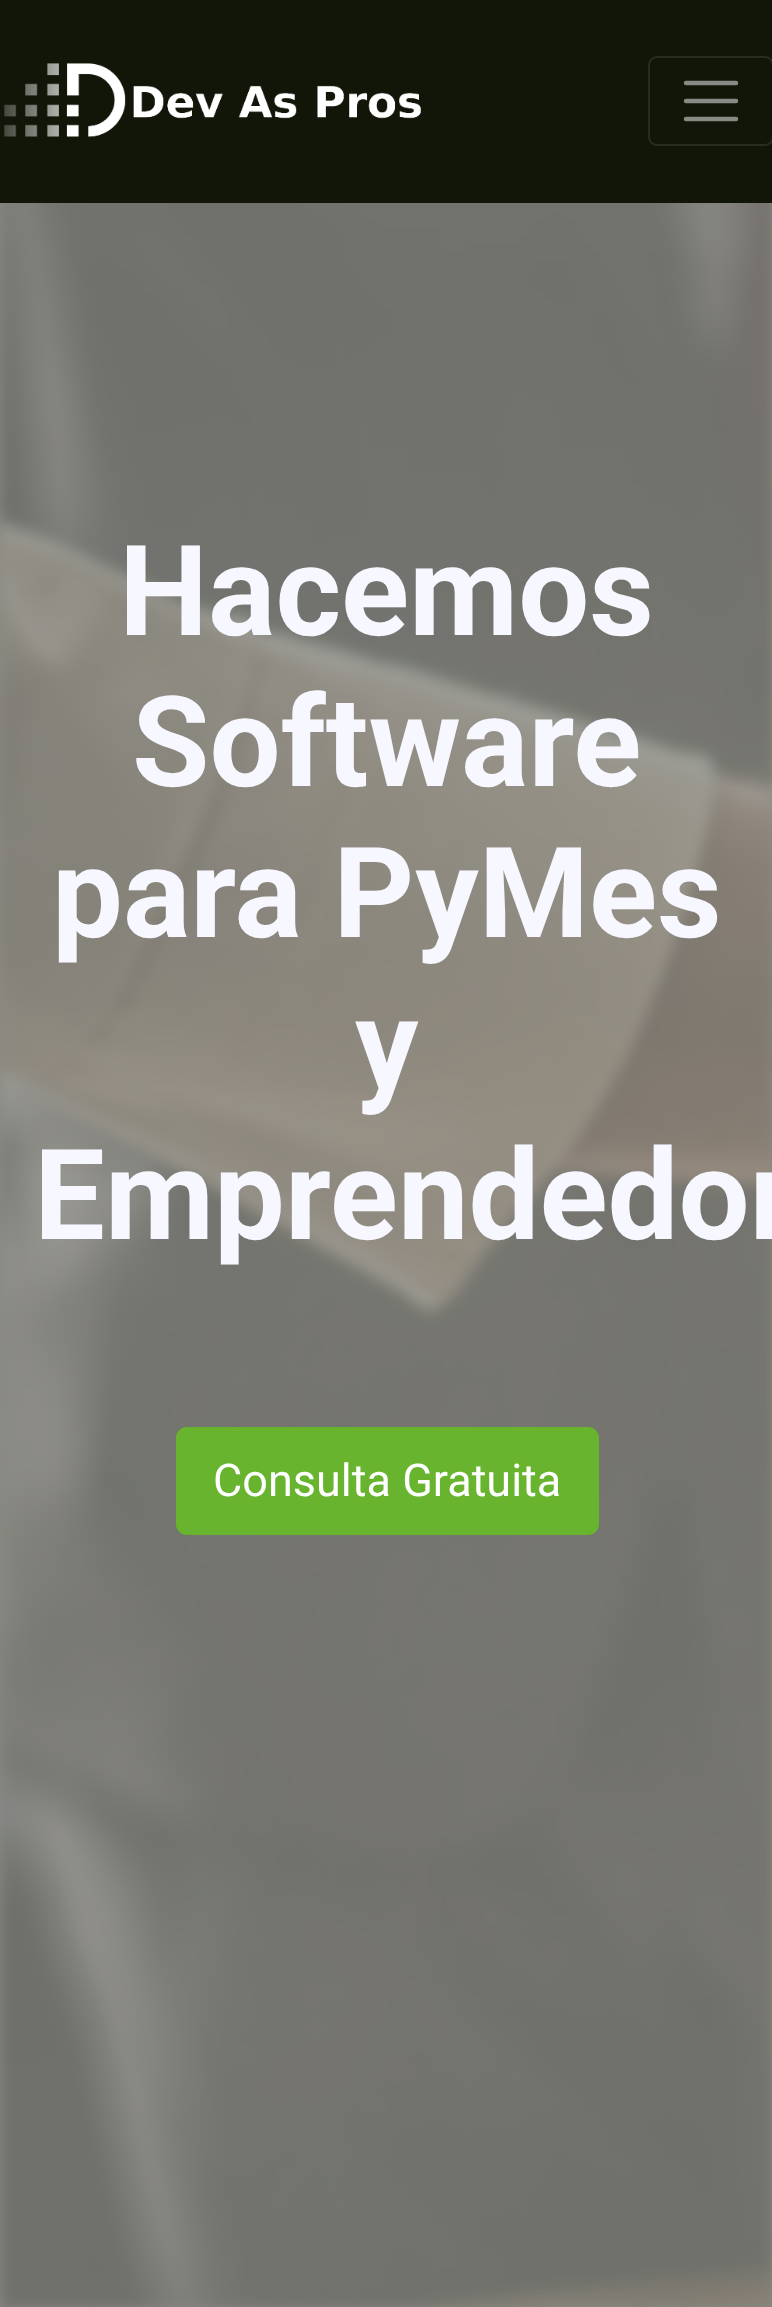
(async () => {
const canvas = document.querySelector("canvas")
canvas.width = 772
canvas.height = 2307
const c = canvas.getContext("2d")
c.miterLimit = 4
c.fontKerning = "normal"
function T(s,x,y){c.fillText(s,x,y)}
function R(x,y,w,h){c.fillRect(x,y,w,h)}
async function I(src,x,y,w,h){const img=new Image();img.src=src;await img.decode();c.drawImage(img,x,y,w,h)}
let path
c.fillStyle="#898a84"
R(0,0,772,2307)
c.fillStyle="#111608"
R(0,0,772,203)
await I("1.png",4,63,417,74)
c.beginPath()
c.roundRect(649,57,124,88,8)
c.strokeStyle="#292d21"
c.lineWidth=2
c.stroke()
path = new Path2D("M686 83h50m-50 18h50m-50 18h50")
c.strokeStyle="#888b84"
c.lineWidth=4.5
c.lineCap="round"
c.stroke(path)
await I("2.png",0,203,772,2104)
c.font="bold 126px Roboto"
c.fillStyle="#f7f7ff"
T("Hacemos",119,635)
T("Software",132,786)
T("para PyMes",52,937)
T("y",355,1088)
T("Emprendedor",34,1239)
c.fillStyle="#68b42e"
c.beginPath()
c.roundRect(177,1428,421,106,10)
c.fill()
c.strokeStyle="#68b42e"
c.lineWidth=2
c.stroke()
c.font="45px Roboto"
c.fillStyle="#fff"
T("Consulta Gratuita",213,1496)
})()
